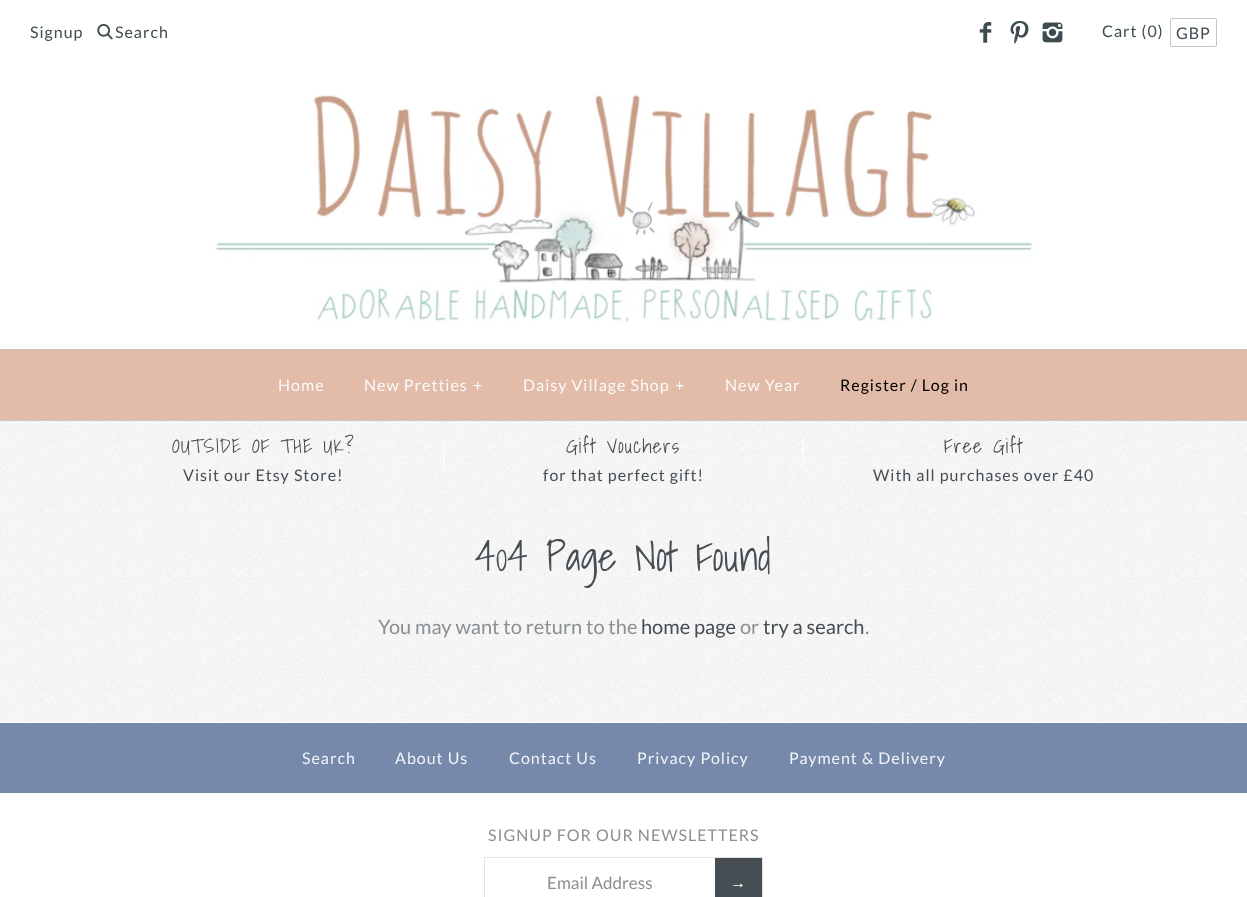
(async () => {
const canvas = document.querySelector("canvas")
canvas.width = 1247
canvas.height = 897
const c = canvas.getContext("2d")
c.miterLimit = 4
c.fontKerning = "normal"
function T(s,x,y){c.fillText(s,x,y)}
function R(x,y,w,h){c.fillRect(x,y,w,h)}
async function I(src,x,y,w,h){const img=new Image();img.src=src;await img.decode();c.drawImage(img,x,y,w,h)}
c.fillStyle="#fff"
R(0,0,1247,897)
c.letterSpacing="1px"
c.font="16px Lato"
c.fillStyle="#3d4c4f"
T("Signup",30,38)
await I("1.png",97,23,16,17)
T("Search",115,38)
await I("2.png",979,22,13,21)
await I("3.png",1010,20,19,24)
await I("4.png",1042,22,21,21)
T("Cart (0)",1102,37)
c.beginPath()
c.roundRect(1170.5,18.5,46,28,1.5)
c.strokeStyle="#c6c6c6"
c.stroke()
T("GBP",1176,39)
await I("5.png",214,94,820,232)
c.fillStyle="#c6c6c6"
R(0,420,1247,1)
c.fillStyle="#e2bca8"
R(0,350,1247,70)
c.fillStyle="#c6c6c6"
R(0,349,1247,1)
c.fillStyle="#fcf9f9"
T("Home",278,391)
T("New Pretties",364,391)
T("+",473,391)
T("Daisy Village Shop",523,391)
T("+",675,391)
T("New Year",725,391)
c.fillStyle="#000"
T("Register / Log in",840,391)
await I("6.png",0,421,1247,301)
c.font="300 20px Shadows Into Light"
c.fillStyle="#464e54"
T("OUTSIDE OF THE UK?",172,453)
c.font="16px Lato"
T("Visit our Etsy Store!",183,481)
c.fillStyle="#fff"
R(443,441,1,28)
c.font="300 20px Shadows Into Light"
c.fillStyle="#464e54"
T("Gift Vouchers",566,453)
c.font="16px Lato"
T("for that perfect gift!",543,481)
c.fillStyle="#fff"
R(803,441,1,28)
c.font="300 20px Shadows Into Light"
c.fillStyle="#464e54"
T("Free Gift",944,453)
c.font="16px Lato"
T("With all purchases over £40",873,481)
c.letterSpacing="0px"
c.font="300 40px Shadows Into Light"
T("404 Page Not Found",475,571)
c.font="20px Lato"
c.fillStyle="#8a8f93"
T("You may want to return to the",378,634)
c.fillStyle="#464e54"
T("home page",641,634)
c.fillStyle="#8a8f93"
T("or",740,634)
c.fillStyle="#464e54"
T("try a search",763,634)
c.fillStyle="#8a8f93"
T(".",865,634)
c.fillStyle="#7689aa"
R(0,723,1247,70)
c.letterSpacing="1px"
c.font="16px Lato"
c.fillStyle="#f0f4f7"
T("Search",302,764)
T("About Us",395,764)
T("Contact Us",509,764)
T("Privacy Policy",637,764)
T("Payment & Delivery",789,764)
c.fillStyle="#8a8f93"
T("SIGNUP FOR OUR NEWSLETTERS",488,841)
c.strokeStyle="#e1e3e4"
c.strokeRect(484.5,857.5,278,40)
c.letterSpacing="0px"
c.font="17px Lato"
T("Email Address",547,889)
c.fillStyle="#464e54"
R(715,858,47,39)
c.letterSpacing="1px"
c.font="16px Liberation Serif"
c.fillStyle="#fff"
T("→",730,888)
})()
